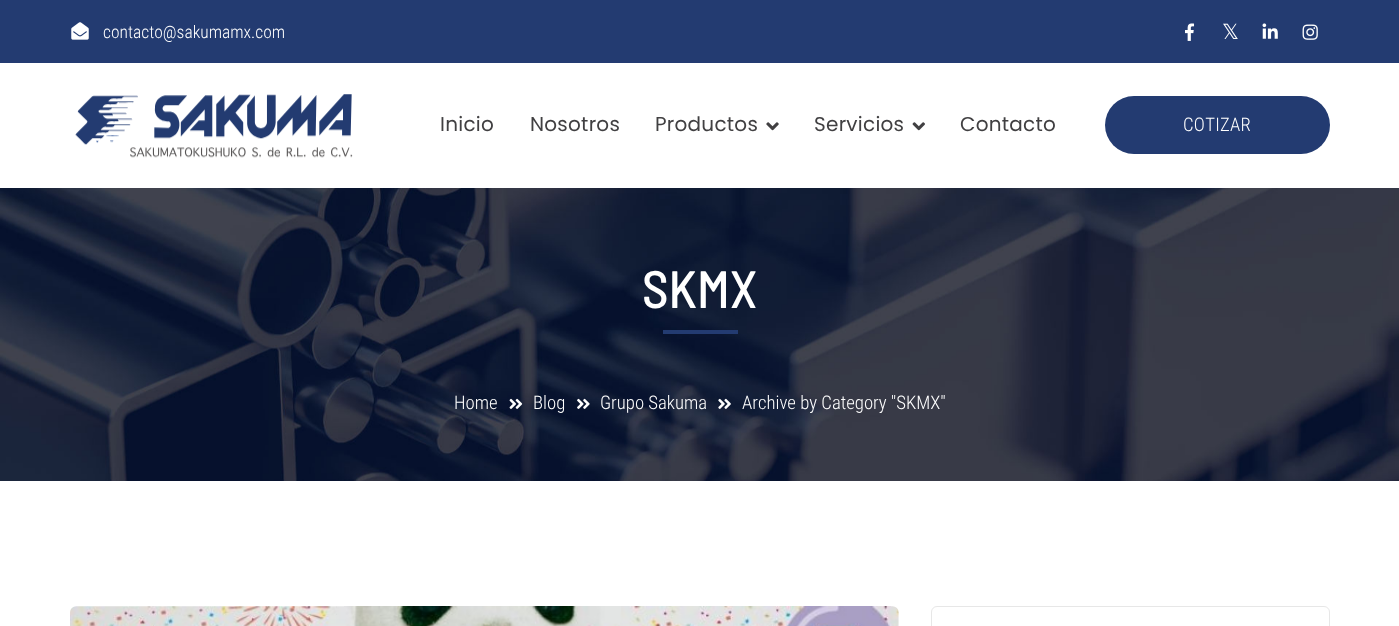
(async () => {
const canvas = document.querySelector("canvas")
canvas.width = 1399
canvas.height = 626
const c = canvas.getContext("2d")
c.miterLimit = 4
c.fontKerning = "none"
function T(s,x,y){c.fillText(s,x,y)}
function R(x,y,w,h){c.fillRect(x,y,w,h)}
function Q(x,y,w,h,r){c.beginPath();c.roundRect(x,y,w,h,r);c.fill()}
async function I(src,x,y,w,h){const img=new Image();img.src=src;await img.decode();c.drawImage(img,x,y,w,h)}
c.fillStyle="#fff"
R(0,0,1399,626)
c.fillStyle="#233b71"
R(0,0,1399,63)
await I("1.png",71,22,18,18)
c.font="300 17.5px Roboto Condensed"
c.fillStyle="#fff"
T("contacto@sakumamx.com",103,38)
await I("2.png",1185,23,10,18)
c.font="21px DejaVu Sans"
T("𝕏",1222,39)
await I("3.png",1262,23,16,16)
await I("4.png",1302,24,16,16)
await I("5.png",75,94,278,64)
c.letterSpacing="0.25px"
c.font="20px Poppins"
c.fillStyle="#414042"
T("Inicio",440,131)
T("Nosotros",530,131)
T("Productos",655,131)
await I("6.png",766,122,13,9)
T("Servicios",814,131)
await I("7.png",912,122,13,9)
T("Contacto",960,131)
c.fillStyle="#233b71"
Q(1105,96,225,58,29)
c.font="300 18.75px Roboto Condensed"
c.fillStyle="#fff"
T("COTIZAR",1183,131)
await I("8.png",0,188,1399,293)
c.letterSpacing="0px"
c.font="500 52.5px Barlow Semi Condensed"
T("SKMX",642,308)
c.fillStyle="#233b71"
R(663,330,75,4)
c.font="300 18.75px Roboto Condensed"
c.fillStyle="#fff"
T("Home",454,409)
await I("9.png",509,398,14,11)
T("Blog",533,409)
await I("10.png",577,398,13,11)
T("Grupo Sakuma",600,409)
await I("11.png",718,398,13,11)
T("Archive by Category \"SKMX\"",742,409)
await I("12.png",70,606,829,20)
c.beginPath()
c.roundRect(931.5,606.5,398,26,5.5)
c.strokeStyle="#e7e7e7"
c.stroke()
})()
